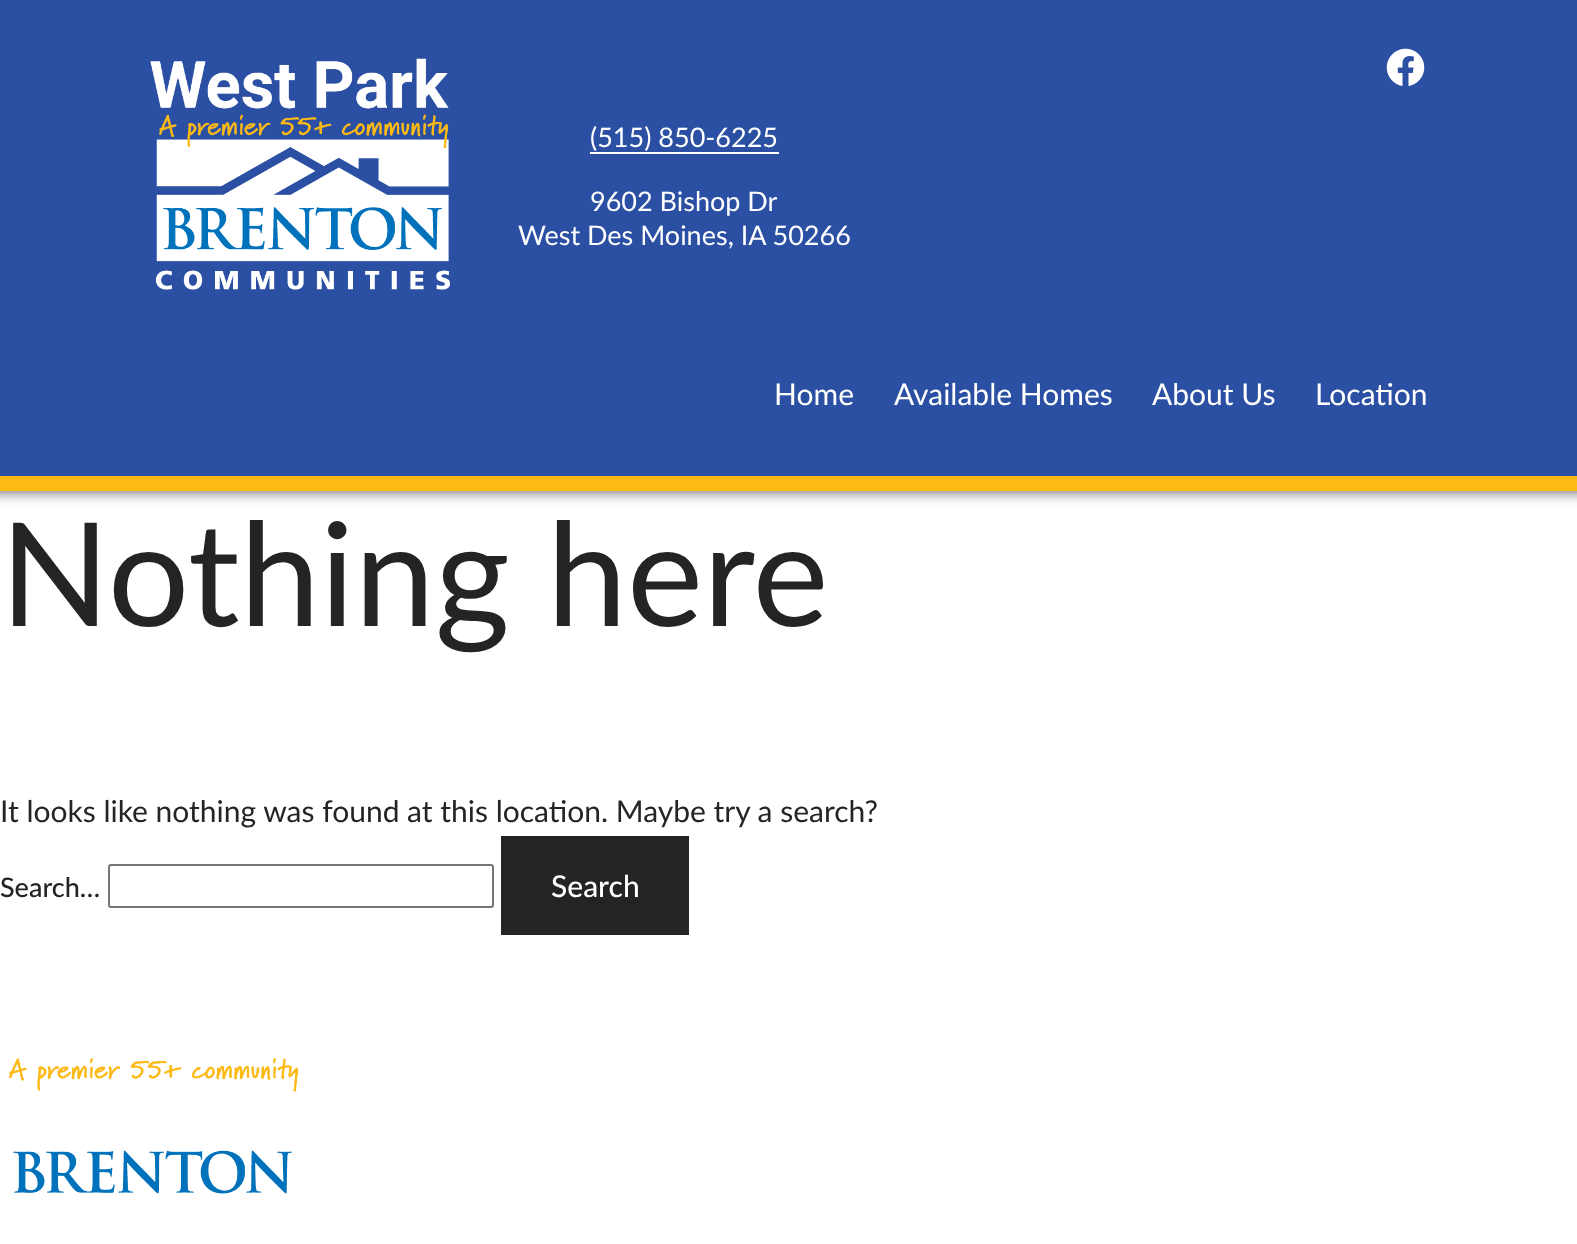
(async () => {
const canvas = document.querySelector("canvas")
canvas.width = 1577
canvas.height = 1244
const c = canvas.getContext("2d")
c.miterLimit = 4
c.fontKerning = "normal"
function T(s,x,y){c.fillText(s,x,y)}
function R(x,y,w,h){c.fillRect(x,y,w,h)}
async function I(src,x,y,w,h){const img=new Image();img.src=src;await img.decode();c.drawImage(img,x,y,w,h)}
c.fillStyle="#fff"
R(0,0,1577,1244)
c.fillStyle="#000000ad"
c.filter="blur(7.5px)"
c.beginPath()
c.rect(-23,-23,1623,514)
c.fill()
c.filter="none"
c.fillStyle="#2b50a3"
R(0,0,1577,476)
c.fillStyle="#fdba12"
R(0,476,1577,15)
await I("1.png",150,58,300,232)
c.font="27px Lato"
c.fillStyle="#fff"
T("(515) 850-6225",590,147)
R(590,152,189,2)
T("9602 Bishop Dr",590,211)
T("West Des Moines, IA 50266",518,245)
await I("2.png",1386,48,39,38)
c.font="30px Lato"
T("Home",774,405)
T("Available Homes",894,405)
T("About Us",1152,405)
T("Location",1315,405)
c.font="144px Lato"
c.fillStyle="#242424"
T("Nothing here",0,626)
c.font="30px Lato"
T("It looks like nothing was found at this location. Maybe try a search?",0,822)
c.font="500 27px Lato"
T("Search…",0,897)
c.beginPath()
c.roundRect(109,865,384,42,2)
c.strokeStyle="#767676"
c.lineWidth=2
c.stroke()
R(501,836,188,99)
c.font="500 30px Lato"
c.fillStyle="#fff"
T("Search",551,897)
await I("3.png",9,1058,290,136)
})()
